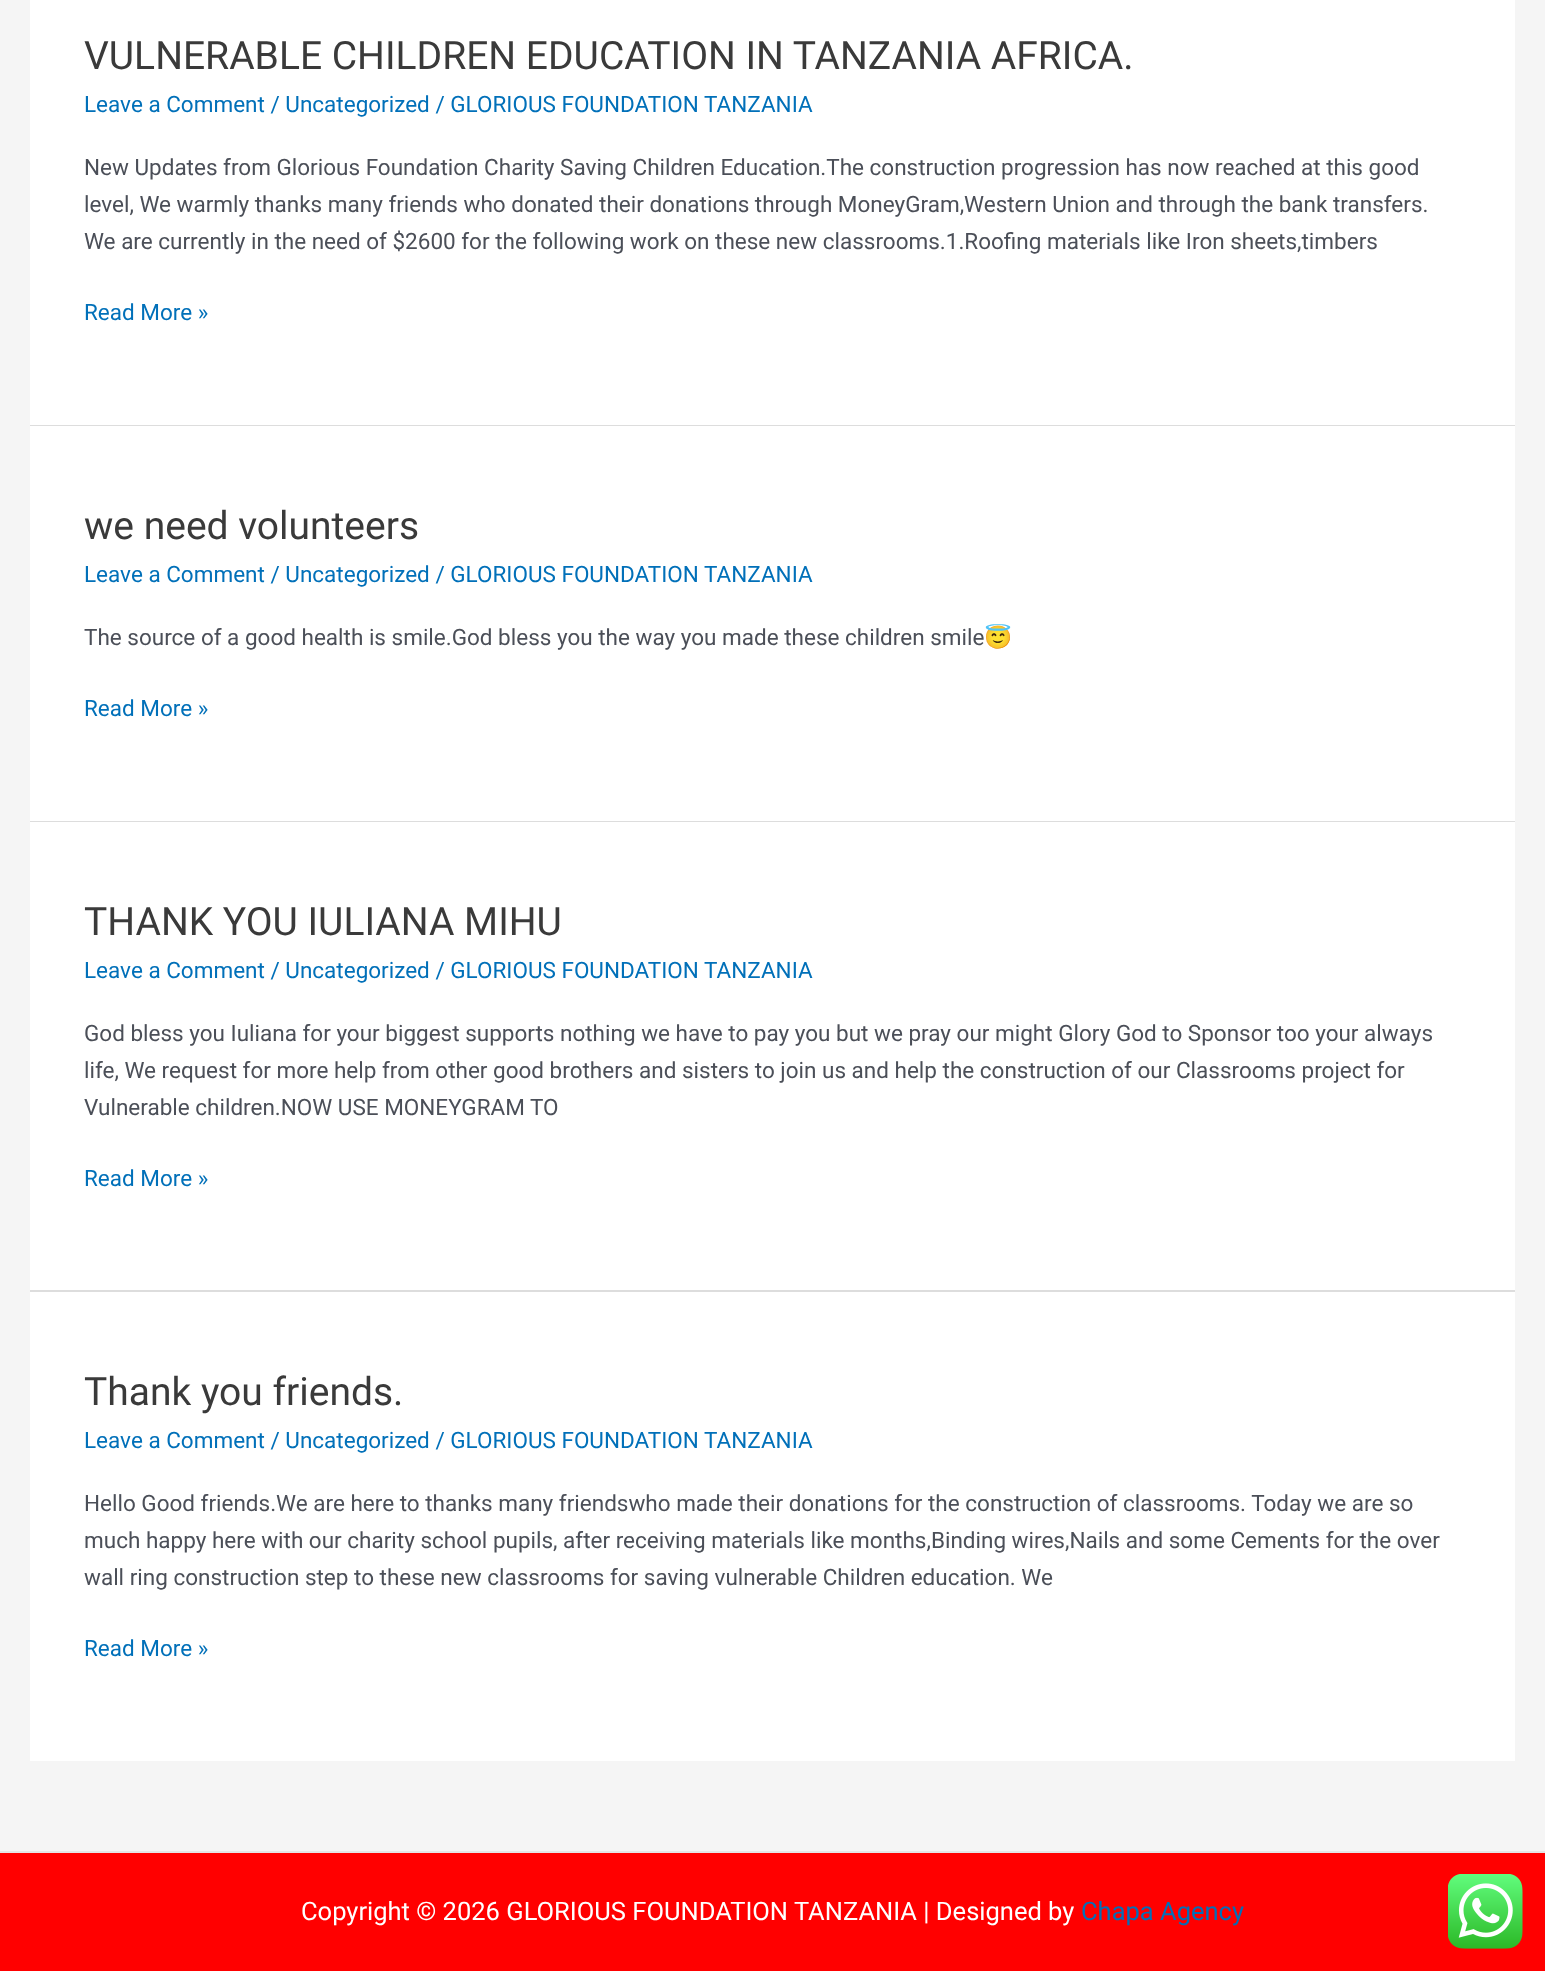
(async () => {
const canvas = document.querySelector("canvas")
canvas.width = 1545
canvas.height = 1971
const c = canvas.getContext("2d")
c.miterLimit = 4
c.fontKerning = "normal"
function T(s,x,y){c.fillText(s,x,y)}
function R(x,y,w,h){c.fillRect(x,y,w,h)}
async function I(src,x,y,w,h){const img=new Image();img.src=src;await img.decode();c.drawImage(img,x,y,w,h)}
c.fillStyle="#f5f5f5"
R(0,0,1545,1971)
c.fillStyle="#fff"
R(30,0,1485,425)
c.fillStyle="#ddd"
R(30,425,1485,1)
c.font="39px Roboto"
c.fillStyle="#3a3a3a"
T("VULNERABLE CHILDREN EDUCATION IN TANZANIA AFRICA.",84,69)
c.font="22.5px Roboto"
c.fillStyle="#0170b9"
T("Leave a Comment / Uncategorized / GLORIOUS FOUNDATION TANZANIA",84,112)
c.fillStyle="#4b4f58"
T("New Updates from Glorious Foundation Charity Saving Children Education.The construction progression has now reached at this good",84,175)
T("level, We warmly thanks many friends who donated their donations through MoneyGram,Western Union and through the bank transfers.",84,212)
T("We are currently in the need of $2600 for the following work on these new classrooms.1.Roofing materials like Iron sheets,timbers",84,249)
c.fillStyle="#0170b9"
T("Read More »",84,320)
c.fillStyle="#fff"
R(30,426,1485,395)
c.fillStyle="#ddd"
R(30,821,1485,1)
c.font="39px Roboto"
c.fillStyle="#3a3a3a"
T("we need volunteers",84,539)
c.font="22.5px Roboto"
c.fillStyle="#0170b9"
T("Leave a Comment / Uncategorized / GLORIOUS FOUNDATION TANZANIA",84,582)
c.fillStyle="#4b4f58"
T("The source of a good health is smile.God bless you the way you made these children smile",84,645)
c.font="22.5px Noto Color Emoji"
T("😇",984,645)
c.font="22.5px Roboto"
c.fillStyle="#0170b9"
T("Read More »",84,716)
c.fillStyle="#fff"
R(30,822,1485,468)
c.fillStyle="#ddd"
R(30,1290,1485,2)
c.font="39px Roboto"
c.fillStyle="#3a3a3a"
T("THANK YOU IULIANA MIHU",84,935)
c.font="22.5px Roboto"
c.fillStyle="#0170b9"
T("Leave a Comment / Uncategorized / GLORIOUS FOUNDATION TANZANIA",84,978)
c.fillStyle="#4b4f58"
T("God bless you Iuliana for your biggest supports nothing we have to pay you but we pray our might Glory God to Sponsor too your always",84,1041)
T("life, We request for more help from other good brothers and sisters to join us and help the construction of our Classrooms project for",84,1078)
T("Vulnerable children.NOW USE MONEYGRAM TO",84,1115)
c.fillStyle="#0170b9"
T("Read More »",84,1186)
c.fillStyle="#fff"
R(30,1292,1485,469)
c.font="39px Roboto"
c.fillStyle="#3a3a3a"
T("Thank you friends.",84,1405)
c.font="22.5px Roboto"
c.fillStyle="#0170b9"
T("Leave a Comment / Uncategorized / GLORIOUS FOUNDATION TANZANIA",84,1448)
c.fillStyle="#4b4f58"
T("Hello Good friends.We are here to thanks many friendswho made their donations for the construction of classrooms. Today we are so",84,1511)
T("much happy here with our charity school pupils, after receiving materials like months,Binding wires,Nails and some Cements for the over",84,1548)
T("wall ring construction step to these new classrooms for saving vulnerable Children education. We",84,1585)
c.fillStyle="#0170b9"
T("Read More »",84,1656)
c.fillStyle="#f00"
R(0,1853,1545,118)
c.fillStyle="#e5e5e5"
R(0,1851,1545,2)
c.font="25.5px Roboto"
c.fillStyle="#fff"
T("Copyright © 2026 GLORIOUS FOUNDATION TANZANIA | Designed by",301,1920)
c.fillStyle="#0170b9"
T("Chapa Agency",1081,1920)
await I("1.png",1448,1874,75,75)
})()
